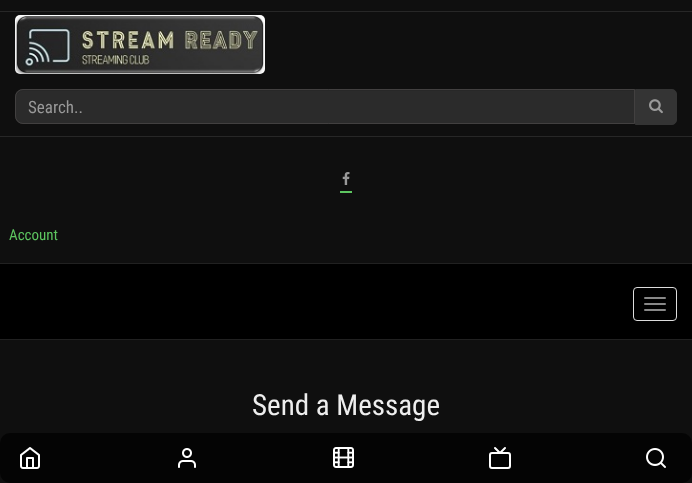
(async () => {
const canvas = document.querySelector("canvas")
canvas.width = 692
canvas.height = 483
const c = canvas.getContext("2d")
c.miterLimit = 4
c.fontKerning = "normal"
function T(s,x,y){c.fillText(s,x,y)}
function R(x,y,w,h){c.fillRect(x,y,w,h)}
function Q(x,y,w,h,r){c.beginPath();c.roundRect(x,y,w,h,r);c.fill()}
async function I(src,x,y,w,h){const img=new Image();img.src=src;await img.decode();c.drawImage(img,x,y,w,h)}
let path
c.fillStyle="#0f0f0f"
R(0,0,692,483)
c.fillStyle="#212121"
R(0,263,692,1)
await I("1.png",15,15,250,59)
c.fillStyle="#272727"
R(0,136,692,1)
R(0,11,692,1)
c.fillStyle="#2b2b2b"
c.beginPath()
c.roundRect(15,89,620,35,[8,0,0,8])
c.fill()
c.fillStyle="#282828"
path = new Path2D("M23 91h611v-1h-611c-4 0-7 3-7 7v1c0-4 3-7 7-7z")
c.fill(path)
c.beginPath()
c.roundRect(15.5,89.5,619,34,[7.5,0,0,7.5])
c.strokeStyle="#424040"
c.stroke()
c.font="17px Roboto Condensed"
c.fillStyle="#999"
T("Search..",28,113)
c.fillStyle="#343434"
c.beginPath()
c.roundRect(635.5,89.5,41,35,[0,4.5,4.5,0])
c.fill()
c.strokeStyle="#343434"
c.stroke()
await I("2.png",649,99,14,15)
c.fillStyle="#5dc560"
R(340,191,12,2)
await I("3.png",342,172,8,13)
c.font="15px Roboto Condensed"
T("Account",9,240)
c.fillStyle="#000"
R(0,264,692,75)
c.fillStyle="#212121"
R(0,339,692,1)
c.beginPath()
c.roundRect(633.5,287.5,43,33,3.5)
c.strokeStyle="#ddd"
c.stroke()
c.fillStyle="#888"
Q(644,297,22,2,1)
Q(644,303,22,2,1)
Q(644,309,22,2,1)
c.font="29px Roboto Condensed"
c.fillStyle="#eee"
T("Send a Message",252,415)
c.fillStyle="#000000b3"
Q(0,433,692,50,10)
await I("4.png",20,447,20,22)
await I("5.png",178,448,18,20)
await I("6.png",333,447,21,21)
c.beginPath()
c.roundRect(490,453,20,15,2)
c.strokeStyle="#fff"
c.lineWidth=2
c.stroke()
path = new Path2D("M505 448l-5 5l-5-5")
c.lineCap="round"
c.lineJoin="round"
c.stroke(path)
await I("7.png",646,448,20,20)
})()
